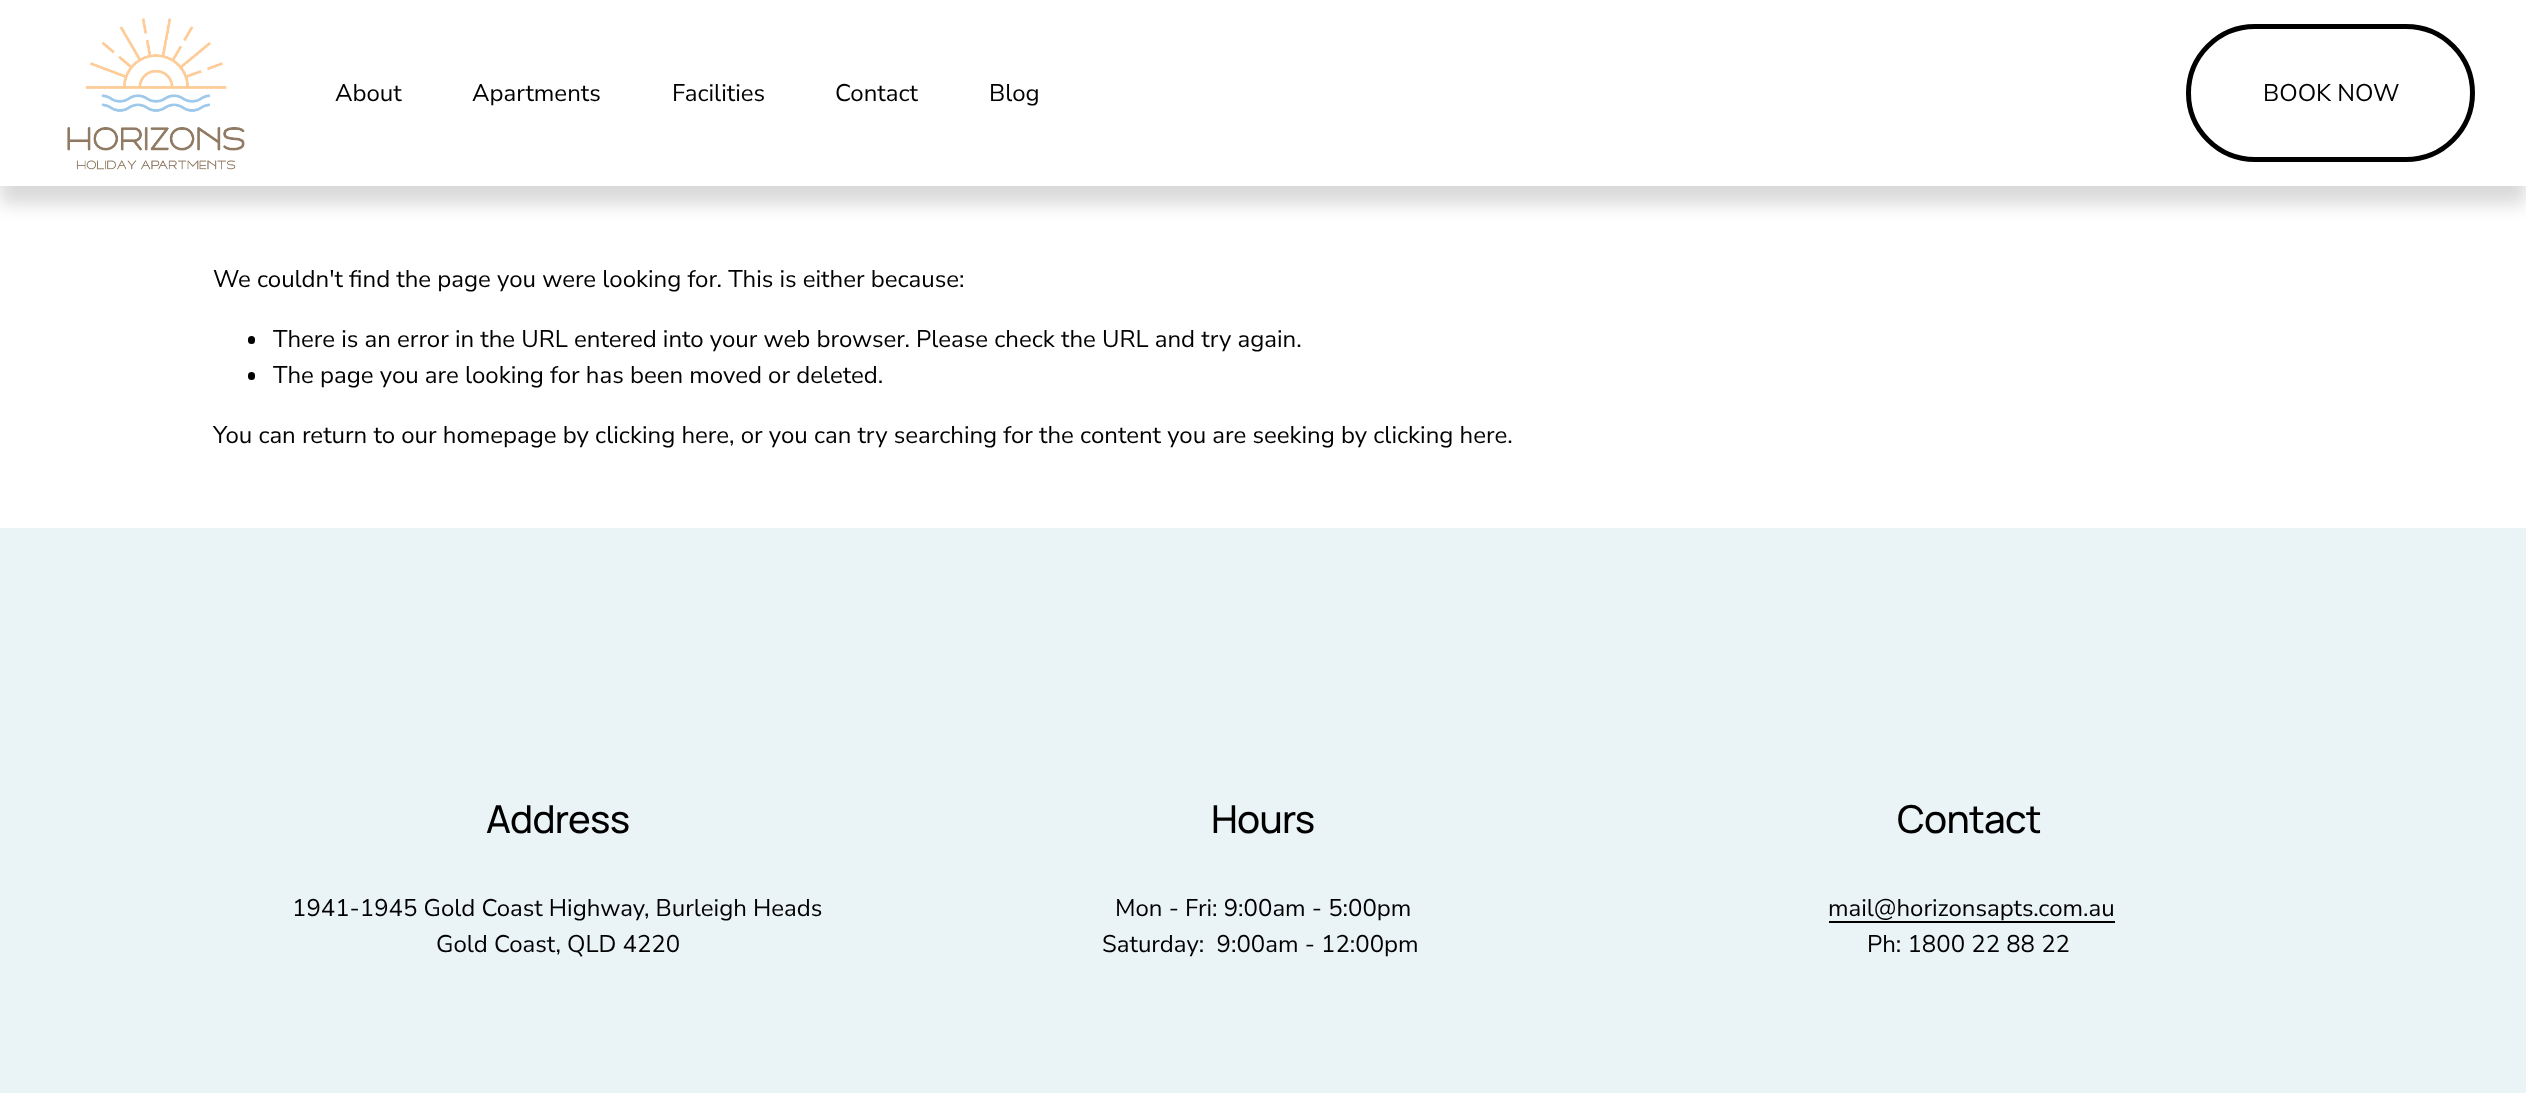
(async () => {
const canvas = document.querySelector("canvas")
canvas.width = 2526
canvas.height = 1093
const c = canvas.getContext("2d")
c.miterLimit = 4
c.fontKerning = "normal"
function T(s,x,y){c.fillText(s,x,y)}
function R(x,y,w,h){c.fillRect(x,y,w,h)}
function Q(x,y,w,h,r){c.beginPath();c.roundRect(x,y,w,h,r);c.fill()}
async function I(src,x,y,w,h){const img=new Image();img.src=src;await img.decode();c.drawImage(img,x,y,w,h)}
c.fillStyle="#fff"
R(0,0,2526,1093)
c.save()
c.beginPath()
c.rect(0,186,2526,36)
c.clip()
c.fillStyle="#d9d9d9"
c.filter="blur(9px)"
c.beginPath()
c.rect(0,18,2526,186)
c.fill()
c.filter="none"
c.restore()
await I("1.png",67,18,178,152)
c.font="24px Nunito Sans"
c.fillStyle="#000"
T("About",335,101)
T("Apartments",472,101)
T("Facilities",672,101)
T("Contact",835,101)
T("Blog",989,101)
c.beginPath()
c.roundRect(2188.5,26.5,284,133,66.5)
c.strokeStyle="#000"
c.lineWidth=5
c.stroke()
T("BOOK NOW",2263,101)
T("We couldn't find the page you were looking for. This is either because:",213,287)
Q(248,336,7,8,3.5)
T("There is an error in the URL entered into your web browser. Please check the URL and try again.",273,347)
Q(248,372,7,8,3.5)
T("The page you are looking for has been moved or deleted.",273,383)
T("You can return to our homepage by clicking here, or you can try searching for the content you are seeking by clicking here.",213,443)
c.fillStyle="#eaf3f6"
R(0,528,2526,565)
c.letterSpacing="-0.75px"
c.font="500 38.5px Manrope"
c.fillStyle="#000"
T("Address",486,833)
c.letterSpacing="0px"
c.font="24px Nunito Sans"
T("1941-1945 Gold Coast Highway, Burleigh Heads",292,916)
T("Gold Coast, QLD 4220",436,952)
c.letterSpacing="-0.75px"
c.font="500 38.5px Manrope"
T("Hours",1211,833)
c.letterSpacing="0px"
c.font="24px Nunito Sans"
T("Mon - Fri: 9:00am - 5:00pm",1115,916)
T("Saturday:  9:00am - 12:00pm",1102,952)
c.letterSpacing="-0.75px"
c.font="500 38.5px Manrope"
T("Contact",1897,833)
c.letterSpacing="0px"
c.font="24px Nunito Sans"
T("mail@horizonsapts.com.au",1828,916)
R(1829,921,286,2)
T("Ph: 1800 22 88 22",1867,952)
})()
